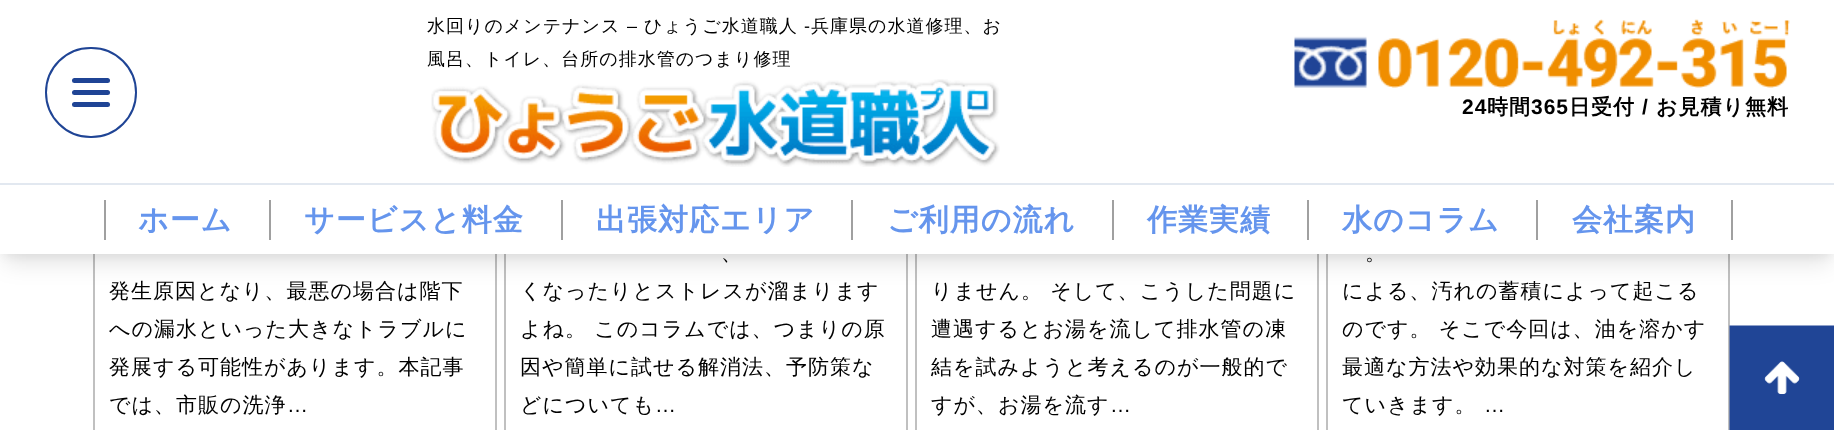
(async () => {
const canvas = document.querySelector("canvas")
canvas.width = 1834
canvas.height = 430
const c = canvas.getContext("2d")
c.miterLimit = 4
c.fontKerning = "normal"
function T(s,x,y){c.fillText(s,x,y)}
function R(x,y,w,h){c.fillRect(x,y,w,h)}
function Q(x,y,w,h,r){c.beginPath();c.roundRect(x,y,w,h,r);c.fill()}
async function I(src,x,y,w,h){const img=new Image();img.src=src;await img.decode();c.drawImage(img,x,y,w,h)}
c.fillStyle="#fff"
R(0,0,1834,430)
c.strokeStyle="#c0c0c0"
c.lineWidth=2
c.strokeRect(94,-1,402,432)
c.strokeRect(505,-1,402,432)
c.strokeRect(916,-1,402,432)
c.strokeRect(1327,-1,402,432)
c.fillStyle="#0000000d"
c.filter="blur(4.5px)"
c.beginPath()
c.rect(3,9,1829,248)
c.fill()
c.filter="none"
c.fillStyle="#0000001a"
c.filter="blur(11px)"
c.beginPath()
c.rect(5,20,1825,244)
c.fill()
c.filter="none"
c.fillStyle="#fff"
R(0,0,1834,254)
c.fillStyle="#e2e8f0"
R(0,183,1834,2)
c.beginPath()
c.roundRect(46,48,90,89,44.5)
c.strokeStyle="#1f4495"
c.stroke()
c.fillStyle="#1f4495"
Q(72,90,38,5,2.5)
Q(72,78,38,5,2.5)
Q(72,102,38,5,2.5)
c.letterSpacing="1px"
c.font="500 18px WenQuanYi Zen Hei"
c.fillStyle="#000"
T("水回りのメンテナンス",427,32)
c.font="18px Liberation Sans"
T("–",627,32)
c.font="500 18px WenQuanYi Zen Hei"
T("ひょうご水道職人",644,32)
c.font="18px Liberation Sans"
T("-",804,32)
c.font="500 18px WenQuanYi Zen Hei"
T("兵庫県の水道修理、お",811,32)
T("風呂、トイレ、台所の排水管のつまり修理",427,65)
await I("1.png",431,79,569,88)
await I("2.png",1294,19,496,69)
c.font="bold 21px Liberation Sans"
T("24",1462,114)
c.font="bold 21px WenQuanYi Zen Hei"
T("時間",1487,114)
c.font="bold 21px Liberation Sans"
T("365",1531,114)
c.font="bold 21px WenQuanYi Zen Hei"
T("日受付",1569,114)
c.font="bold 21px Liberation Sans"
T("/",1642,114)
c.font="bold 21px WenQuanYi Zen Hei"
T("お見積り無料",1656,114)
c.fillStyle="#a0a0a0"
R(104,200,2,40)
c.font="bold 30px WenQuanYi Zen Hei"
c.fillStyle="#6595ed"
T("ホーム",138,230)
c.fillStyle="#a0a0a0"
R(269,200,2,40)
c.fillStyle="#6595ed"
T("サービスと料金",304,230)
c.fillStyle="#a0a0a0"
R(561,200,2,40)
c.fillStyle="#6595ed"
T("出張対応エリア",596,230)
c.fillStyle="#a0a0a0"
R(851,200,2,40)
c.fillStyle="#6595ed"
T("ご利用の流れ",887,230)
c.fillStyle="#a0a0a0"
R(1112,200,2,40)
c.fillStyle="#6595ed"
T("作業実績",1147,230)
c.fillStyle="#a0a0a0"
R(1307,200,2,40)
c.fillStyle="#6595ed"
T("水のコラム",1342,230)
c.fillStyle="#a0a0a0"
R(1536,200,2,40)
c.fillStyle="#6595ed"
T("会社案内",1572,230)
c.fillStyle="#a0a0a0"
R(1731,200,2,40)
c.font="500 21px WenQuanYi Zen Hei"
c.fillStyle="#000"
T("発生原因となり、最悪の場合は階下",109,298)
T("への漏水といった大きなトラブルに",109,336)
T("発展する可能性があります。本記事",109,374)
T("では、市販の洗浄",109,412)
c.font="21px Liberation Sans"
T("…",287,412)
c.font="500 21px WenQuanYi Zen Hei"
T("、",721,260)
T("くなったりとストレスが溜まります",520,298)
T("よね。 このコラムでは、つまりの原",520,336)
T("因や簡単に試せる解消法、予防策な",520,374)
T("どについても",520,412)
c.font="21px Liberation Sans"
T("…",655,412)
c.font="500 21px WenQuanYi Zen Hei"
T("りません。 そして、こうした問題に",931,298)
T("遭遇するとお湯を流して排水管の凍",931,336)
T("結を試みようと考えるのが一般的で",931,374)
T("すが、お湯を流す",931,412)
c.font="21px Liberation Sans"
T("…",1110,412)
c.font="500 21px WenQuanYi Zen Hei"
T("。",1365,260)
T("による、汚れの蓄積によって起こる",1342,298)
T("のです。 そこで今回は、油を溶かす",1342,336)
T("最適な方法や効果的な対策を紹介し",1342,374)
T("ていきます。",1342,412)
c.font="21px Liberation Sans"
T("…",1484,412)
await I("3.png",1729,325,105,105)
})()
